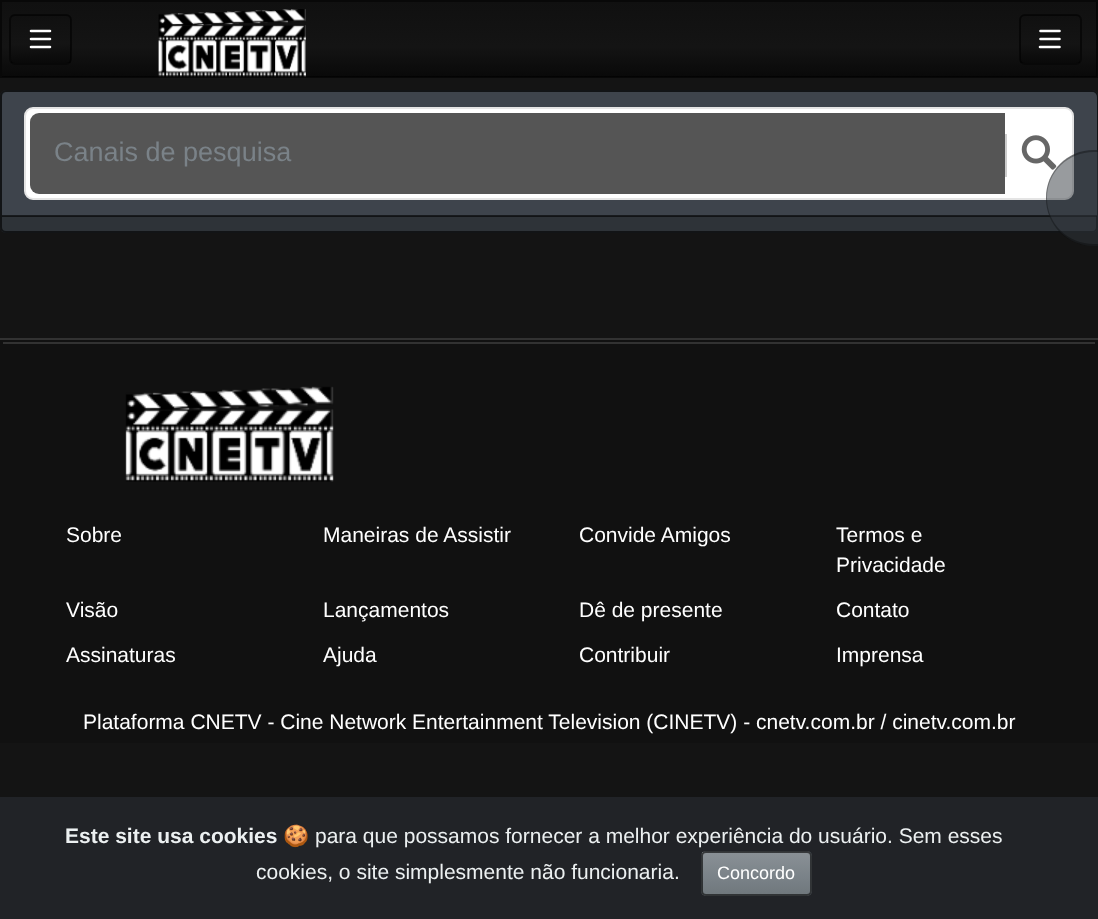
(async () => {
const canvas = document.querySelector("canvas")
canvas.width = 1098
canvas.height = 919
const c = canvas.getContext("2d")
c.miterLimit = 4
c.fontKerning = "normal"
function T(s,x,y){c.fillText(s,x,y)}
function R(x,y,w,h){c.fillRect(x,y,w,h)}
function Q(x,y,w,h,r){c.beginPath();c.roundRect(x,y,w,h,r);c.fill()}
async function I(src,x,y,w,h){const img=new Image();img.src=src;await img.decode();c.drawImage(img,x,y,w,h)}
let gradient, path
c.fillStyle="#141414"
R(0,0,1098,919)
gradient = c.createLinearGradient(549,1.5,549,77)
gradient.addColorStop(0,"#101010")
gradient.addColorStop(.6,"#141414")
gradient.addColorStop(1,"#090909")
c.fillStyle = gradient
R(2,2,1095,75)
c.strokeStyle="#00000099"
c.lineWidth=2
c.strokeRect(1,1,1096,76)
c.fillStyle="#141414"
Q(9,14,63,51,6)
c.save()
c.beginPath()
c.roundRect(9,14,63,51,6)
c.clip()
gradient = c.createLinearGradient(40,15,41,63)
gradient.addColorStop(0,"#101010")
gradient.addColorStop(.6,"#141414")
gradient.addColorStop(1,"#090909")
c.fillStyle = gradient
R(11,15,60,48)
c.restore()
c.beginPath()
c.roundRect(10,15,61,49,5)
c.stroke()
path = new Path2D("M50 31h-19m19 8h-19m0 8h19")
c.strokeStyle="#fff"
c.lineWidth=2.6
c.lineCap="round"
c.stroke(path)
await I("1.png",158,9,148,68)
Q(1019,14,63,51,6)
c.save()
c.beginPath()
c.roundRect(1019,14,63,51,6)
c.clip()
gradient = c.createLinearGradient(1050,15,1050,63)
gradient.addColorStop(0,"#101010")
gradient.addColorStop(.6,"#141414")
gradient.addColorStop(1,"#090909")
c.fillStyle = gradient
R(1020,15,60,48)
c.restore()
c.beginPath()
c.roundRect(1020,15,61,49,5)
c.strokeStyle="#00000099"
c.lineWidth=2
c.stroke()
path = new Path2D("M1040.5 31h19m0 8h-19m19 8h-19.5")
c.strokeStyle="#fff"
c.lineWidth=2.6
c.stroke(path)
c.fillStyle="#2e3338"
Q(0,90,1098,143,6)
c.beginPath()
c.roundRect(1,91,1096,141,5)
c.strokeStyle="#00000099"
c.lineWidth=2
c.stroke()
c.fillStyle="#3e444c"
c.beginPath()
c.roundRect(2,92,1095,124,[5,5,0,0])
c.fill()
c.fillStyle="#00000099"
R(2,215,1095,2)
c.fillStyle="#fff"
c.beginPath()
c.roundRect(25,108,1048,91,8)
c.fill()
c.strokeStyle="#e4e4e4"
c.stroke()
c.fillStyle="#555"
c.beginPath()
c.roundRect(30,113,975,81,[9,0,0,9])
c.fill()
c.font="27px Liberation Sans"
c.fillStyle="#7a8288"
T("Canais de pesquisa",54,161)
c.fillStyle="#ccc"
R(1005,134,2,43)
await I("2.png",1021,135,36,35)
c.fillStyle="#111"
R(0,340,1098,403)
c.fillStyle="#323232"
R(0,338,1098,2)
R(3,342,1092,2)
await I("3.png",125,386,209,96)
c.font="21px Liberation Sans"
c.fillStyle="#fff"
T("Sobre",66,542)
T("Maneiras de Assistir",323,542)
T("Convide Amigos",579,542)
T("Termos e",836,542)
T("Privacidade",836,572)
T("Visão",66,617)
T("Lançamentos",323,617)
T("Dê de presente",579,617)
T("Contato",836,617)
T("Assinaturas",66,662)
T("Ajuda",323,662)
T("Contribuir",579,662)
T("Imprensa",836,662)
T("Plataforma CNETV - Cine Network Entertainment Television (CINETV) - cnetv.com.br / cinetv.com.br",83,729)
c.fillStyle="#32383e80"
path = new Path2D("M1094 150h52v96h-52c-26.5 0-48-21.5-48-48c0-26.5 21.5-48 48-48z")
c.fill(path)
c.fillStyle="#0000004d"
path = new Path2D("M1094 150h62v96h-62c-27 0-48-21-48-48c0-27 21-48 48-48zm0 2h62v92h-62c-26 0-47-20-47-46c0-26 21-46 47-46z")
c.fill(path,"evenodd")
c.fillStyle="#212327"
R(0,797,1098,122)
c.font="bold 21px Liberation Sans"
c.fillStyle="#ecf0f1"
T("Este site usa cookies",65,843)
c.font="21px Noto Color Emoji"
T("🍪",283,843)
c.font="21px Liberation Sans"
T("para que possamos fornecer a melhor experiência do usuário. Sem esses",315,843)
T("cookies, o site simplesmente não funcionaria.",256,879)
c.fillStyle="#7a8288"
Q(701,851,111,45,5)
gradient = c.createLinearGradient(756,852,756,894)
gradient.addColorStop(0,"#8a9196")
gradient.addColorStop(.6,"#7a8288")
gradient.addColorStop(1,"#70787d")
c.fillStyle = gradient
R(702,852,108,42)
c.beginPath()
c.roundRect(702,852,109,43,4)
c.strokeStyle="#00000099"
c.stroke()
c.font="18px Liberation Sans"
c.fillStyle="#fff"
T("Concordo",717,879)
})()
